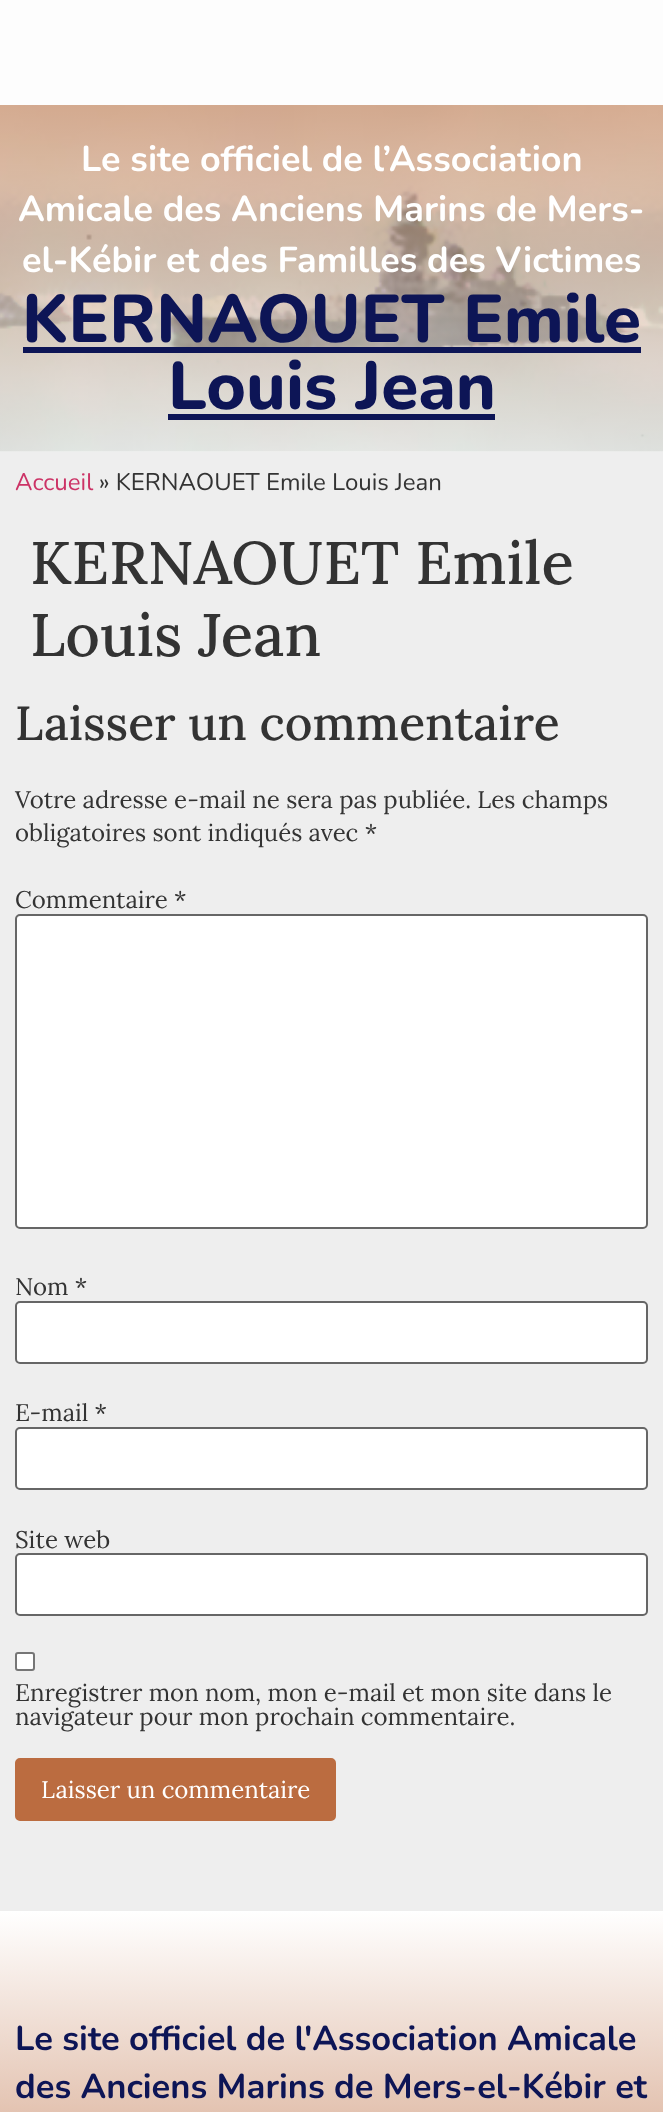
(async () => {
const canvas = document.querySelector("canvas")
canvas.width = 663
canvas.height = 2112
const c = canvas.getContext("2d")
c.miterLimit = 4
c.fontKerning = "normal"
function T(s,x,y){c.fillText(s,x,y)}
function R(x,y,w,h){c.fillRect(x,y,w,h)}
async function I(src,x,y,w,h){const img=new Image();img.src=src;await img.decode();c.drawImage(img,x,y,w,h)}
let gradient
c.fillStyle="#eee"
R(0,0,663,2112)
c.fillStyle="#fdfdfd"
R(0,0,663,105)
await I("1.png",0,105,663,347)
gradient = c.createLinearGradient(332,105,332,452)
gradient.addColorStop(0,"#bb6c4080")
gradient.addColorStop(1,"#ffffff80")
c.fillStyle = gradient
R(0,105,663,347)
c.font="bold 36px Nunito"
c.fillStyle="#fff"
T("Le site officiel de l’Association",81,171)
T("Amicale des Anciens Marins de Mers-",18,221)
T("el-Kébir et des Familles des Victimes",22,272)
c.font="800 67.5px Nunito"
c.fillStyle="#0d1556"
T("KERNAOUET Emile",22,342)
R(23,347,618,6)
T("Louis Jean",168,409)
R(168,414,327,6)
c.font="24px Nunito"
c.fillStyle="#c36"
T("Accueil",15,490)
c.fillStyle="#333"
T("» KERNAOUET Emile Louis Jean",99,490)
c.font="500 60px Lora"
T("KERNAOUET Emile",30,584)
T("Louis Jean",30,656)
c.font="500 48px Lora"
T("Laisser un commentaire",15,740)
c.font="24px Lora"
T("Votre adresse e-mail ne sera pas publiée. Les champs",15,808)
T("obligatoires sont indiqués avec *",15,841)
T("Commentaire *",15,908)
c.fillStyle="#fff"
c.beginPath()
c.roundRect(16,915,631,313,4)
c.fill()
c.strokeStyle="#666"
c.lineWidth=2
c.stroke()
c.fillStyle="#333"
T("Nom *",15,1295)
c.fillStyle="#fff"
c.beginPath()
c.roundRect(16,1302,631,61,4)
c.fill()
c.stroke()
c.fillStyle="#333"
T("E-mail *",15,1421)
c.fillStyle="#fff"
c.beginPath()
c.roundRect(16,1428,631,61,4)
c.fill()
c.stroke()
c.fillStyle="#333"
T("Site web",15,1548)
c.fillStyle="#fff"
c.beginPath()
c.roundRect(16,1554,631,61,4)
c.fill()
c.stroke()
c.beginPath()
c.roundRect(16,1653,18,17,2)
c.fill()
c.strokeStyle="#767676"
c.stroke()
c.fillStyle="#333"
T("Enregistrer mon nom, mon e-mail et mon site dans le",15,1701)
T("navigateur pour mon prochain commentaire.",15,1725)
c.fillStyle="#bb6c40"
c.beginPath()
c.roundRect(16,1759,319,61,4)
c.fill()
c.strokeStyle="#bb6c40"
c.stroke()
c.fillStyle="#fff"
T("Laisser un commentaire",41,1798)
gradient = c.createLinearGradient(331,1911,332,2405)
gradient.addColorStop(0,"#fff")
gradient.addColorStop(1,"#bb6c40")
c.fillStyle = gradient
R(0,1911,663,201)
c.font="bold 34.5px Nunito"
c.fillStyle="#0d1556"
T("Le site officiel de l'Association Amicale",15,2050)
T("des Anciens Marins de Mers-el-Kébir et",15,2098)
})()
